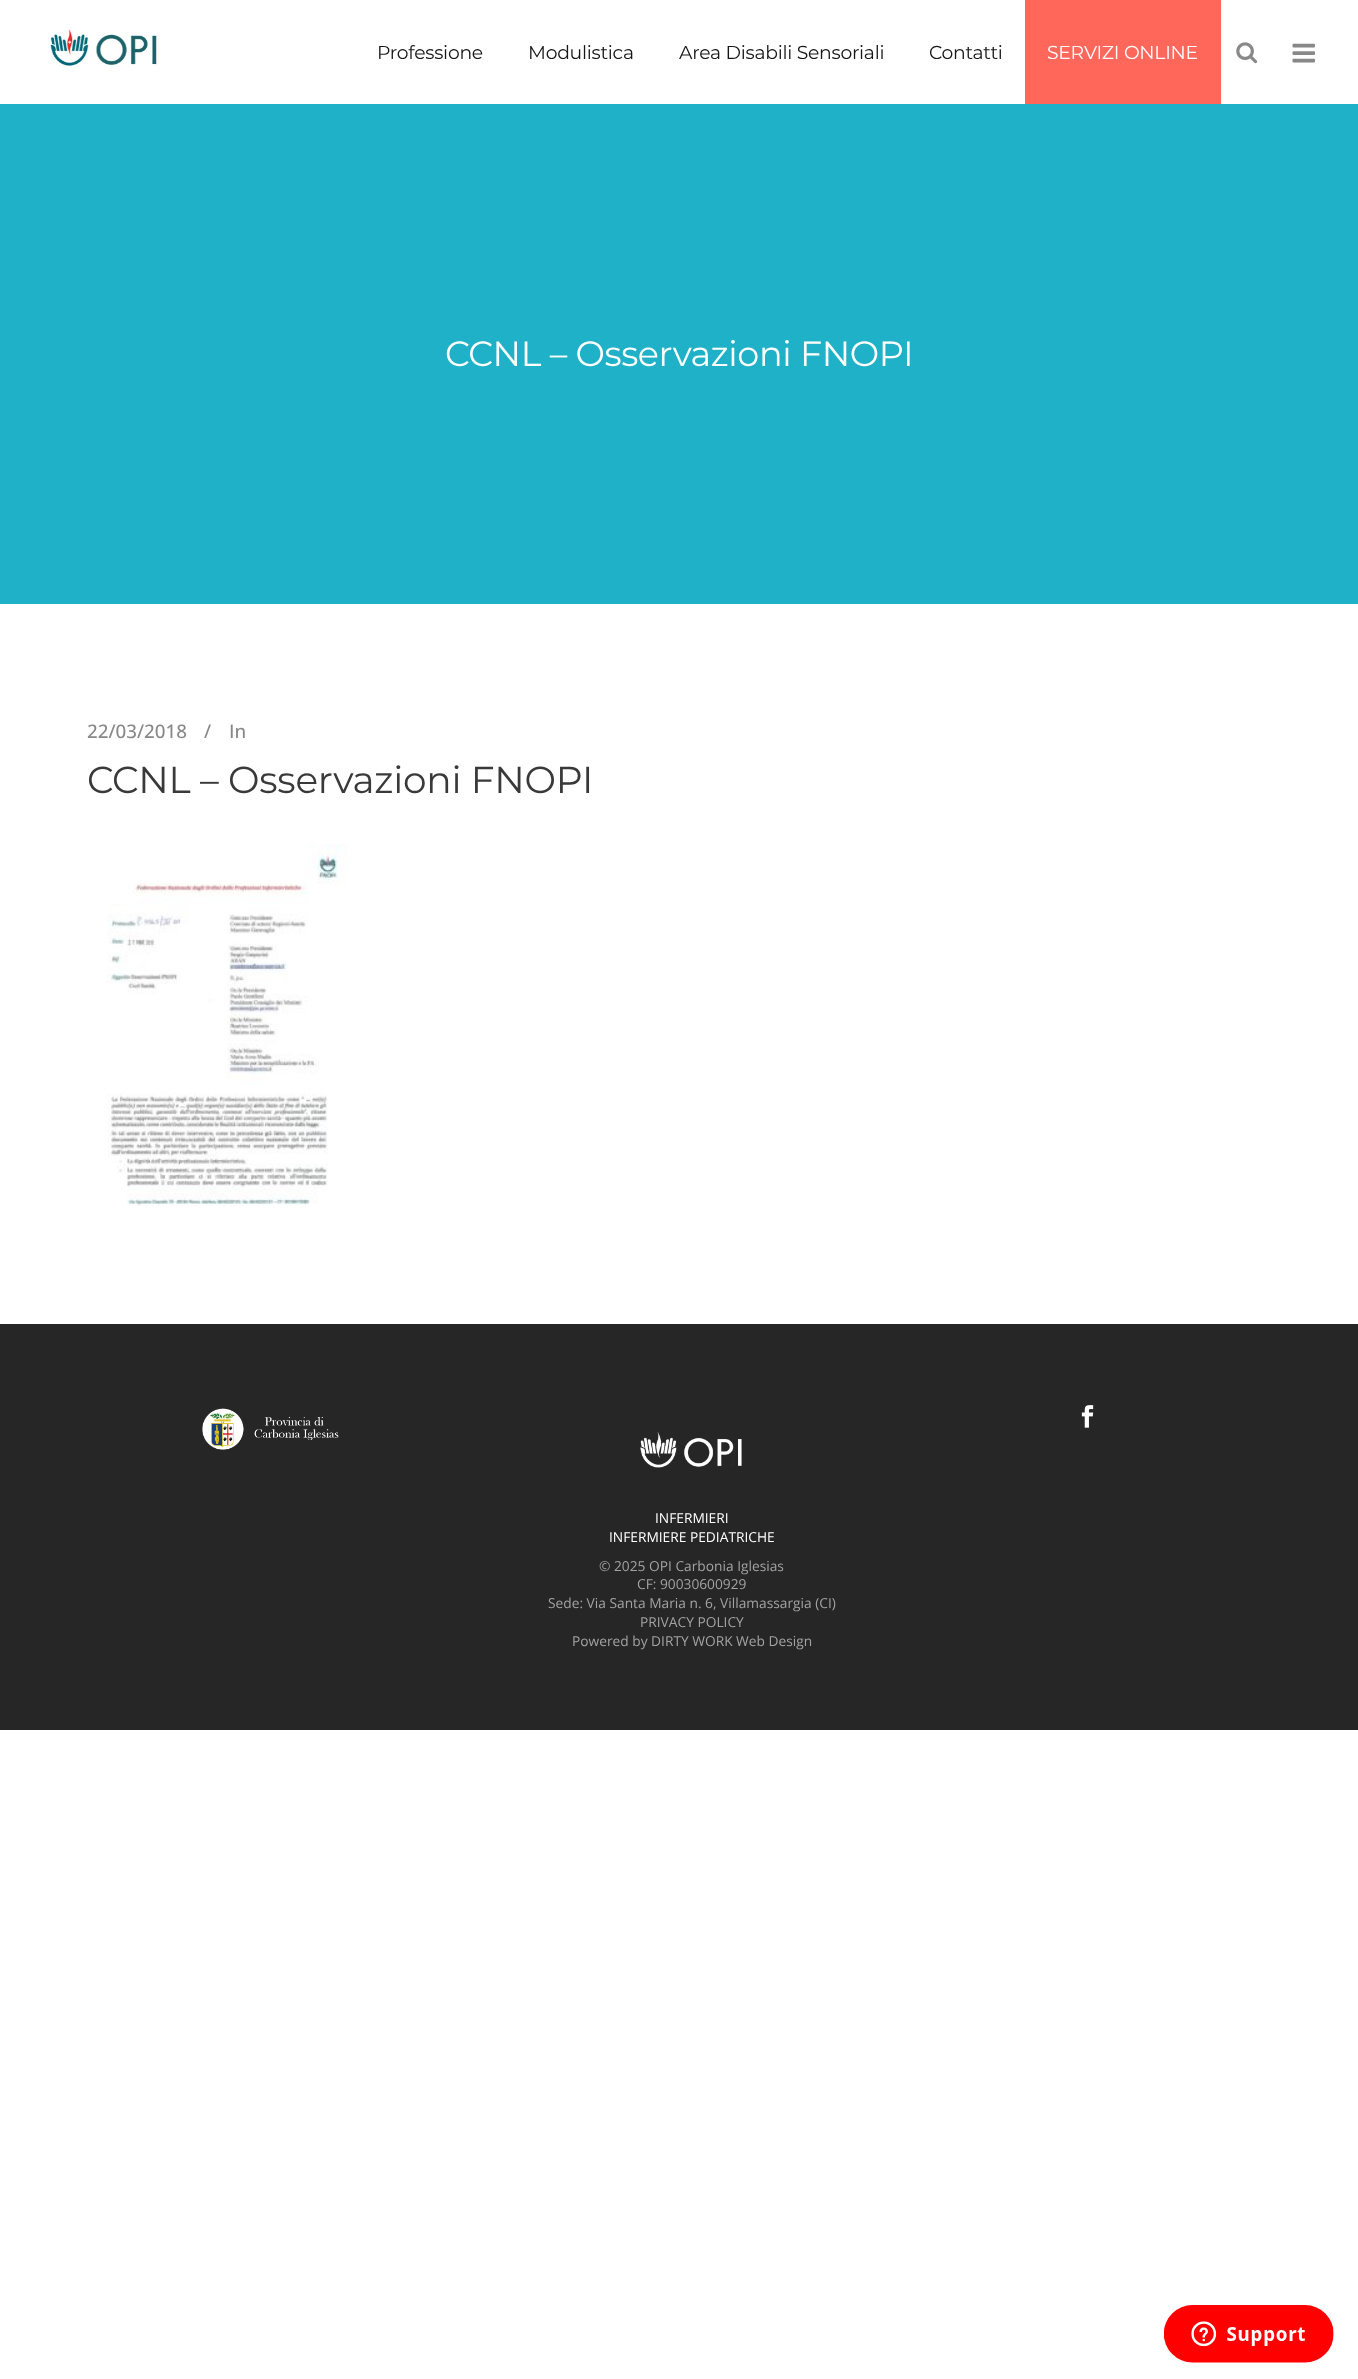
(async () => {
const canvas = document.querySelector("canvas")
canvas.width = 1358
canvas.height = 2379
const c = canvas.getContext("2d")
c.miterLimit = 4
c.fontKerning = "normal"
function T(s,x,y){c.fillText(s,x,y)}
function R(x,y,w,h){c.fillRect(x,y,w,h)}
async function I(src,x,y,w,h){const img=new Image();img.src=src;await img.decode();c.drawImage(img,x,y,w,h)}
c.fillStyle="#fff"
R(0,0,1358,2379)
await I("1.png",50,28,109,38)
c.letterSpacing="-0.25px"
c.font="18.75px Montserrat"
c.fillStyle="#161616"
T("Professione",377,59)
T("Modulistica",528,59)
T("Area Disabili Sensoriali",679,59)
T("Contatti",929,59)
c.fillStyle="#ff675b"
R(1025,0,196,104)
c.fillStyle="#fff"
T("SERVIZI ONLINE",1047,59)
await I("2.png",1236,42,22,22)
await I("3.png",1292,43,23,20)
c.fillStyle="#1eb1c7"
R(0,104,1358,500)
c.letterSpacing="-0.4px"
c.font="35px Montserrat"
c.fillStyle="#fff"
T("CCNL – Osservazioni FNOPI",445,366)
c.letterSpacing="0px"
c.font="500 18.75px Open Sans"
c.fillStyle="#888"
T("22/03/2018",87,738)
T("/",204,738)
T("In",229,738)
c.letterSpacing="-0.25px"
c.font="37.5px Montserrat"
c.fillStyle="#393939"
T("CCNL – Osservazioni FNOPI",87,793)
await I("4.png",107,844,241,362)
c.fillStyle="#262626"
R(0,1324,1358,406)
await I("5.png",202,1408,137,42)
await I("6.png",1081,1405,13,23)
await I("7.png",640,1432,102,36)
c.letterSpacing="0px"
c.font="13.75px Open Sans"
c.fillStyle="#fff"
T("INFERMIERI",655,1523)
T("INFERMIERE PEDIATRICHE",609,1542)
c.fillStyle="#a2a2a2"
T("© 2025 OPI Carbonia Iglesias",599,1571)
T("CF: 90030600929",637,1589)
T("Sede: Via Santa Maria n. 6, Villamassargia (CI)",548,1608)
T("PRIVACY POLICY",640,1627)
T("Powered by DIRTY WORK Web Design",572,1646)
await I("8.png",1164,2305,170,58)
})()
